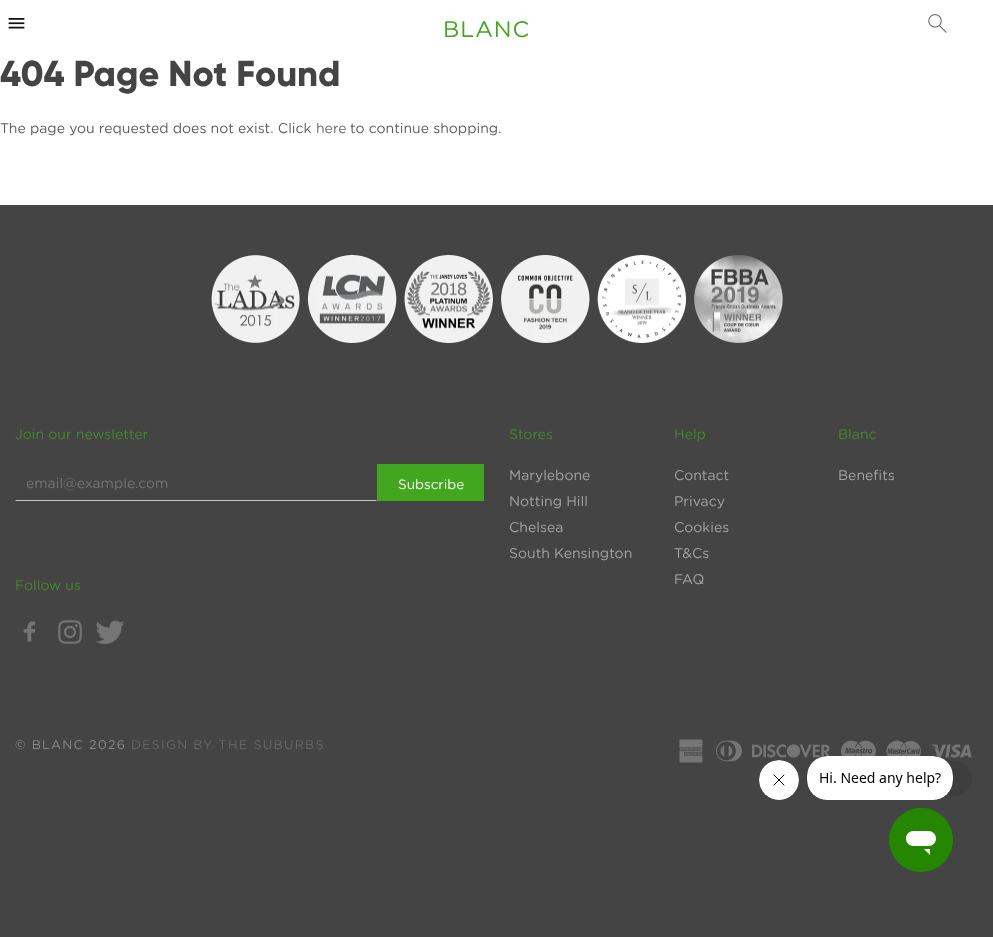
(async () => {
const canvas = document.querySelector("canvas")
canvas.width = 993
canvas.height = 937
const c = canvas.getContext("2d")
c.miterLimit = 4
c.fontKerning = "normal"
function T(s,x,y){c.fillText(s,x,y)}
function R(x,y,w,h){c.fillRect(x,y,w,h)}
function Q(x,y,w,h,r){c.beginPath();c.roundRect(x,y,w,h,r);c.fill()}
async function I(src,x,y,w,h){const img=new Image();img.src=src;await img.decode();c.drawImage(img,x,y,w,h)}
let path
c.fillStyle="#444"
R(0,0,993,937)
c.fillStyle="#fff"
R(0,0,993,205)
await I("1.png",8,18,17,11)
c.letterSpacing="1px"
c.font="22.5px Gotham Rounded"
c.fillStyle="#42a71e"
T("BLANC",443,37)
await I("2.png",928,14,19,19)
c.letterSpacing="0px"
c.font="800 36px Gilroy"
c.fillStyle="#444"
T("404 Page Not Found",0,86)
c.font="14px Gotham Rounded"
c.fillStyle="#5c5c5c"
T("The page you requested does not exist. Click",0,133)
c.fillStyle="#6d6d6d"
T("here",316,133)
c.fillStyle="#5c5c5c"
T("to continue shopping.",350,133)
await I("3.png",211,255,572,88)
c.fillStyle="#438929"
T("Join our newsletter",15,439)
c.fillStyle="#ccc"
path = new Path2D("M377 501h-362l1-1h360z")
c.fill(path)
c.fillStyle="#757575"
T("email@example.com",26,488)
c.fillStyle="#42a71e"
R(377,464,107,37)
c.font="13.5px Gotham Rounded"
c.fillStyle="#fff"
T("Subscribe",398,489)
c.font="14px Gotham Rounded"
c.fillStyle="#438929"
T("Follow us",15,590)
await I("4.png",23,621,12,21)
await I("5.png",58,620,24,24)
await I("6.png",96,620,28,24)
T("Stores",509,439)
c.fillStyle="#a3a3a3"
T("Marylebone",509,480)
T("Notting Hill",509,506)
T("Chelsea",509,532)
T("South Kensington",509,558)
c.fillStyle="#438929"
T("Help",674,439)
c.fillStyle="#a3a3a3"
T("Contact",674,480)
T("Privacy",674,506)
T("Cookies",674,532)
T("T&Cs",674,558)
T("FAQ",674,584)
c.fillStyle="#438929"
T("Blanc",838,439)
c.fillStyle="#a3a3a3"
T("Benefits",838,480)
c.letterSpacing="1.25px"
c.font="12.6px Gotham Rounded"
c.fillStyle="#888"
T("© BLANC 2026",15,749)
c.fillStyle="#666"
T("DESIGN BY THE SUBURBS",131,749)
await I("7.png",679,739,24,24)
await I("8.png",716,740,26,22)
await I("9.png",752,744,78,14)
await I("10.png",841,740,35,16)
await I("11.png",886,740,35,16)
await I("12.png",931,744,41,14)
c.fillStyle="#3e3e3e"
Q(806,761,166,35,17.5)
await I("13.png",759,760,40,40)
await I("14.png",807,756,146,44)
await I("15.png",889,808,64,64)
})()
